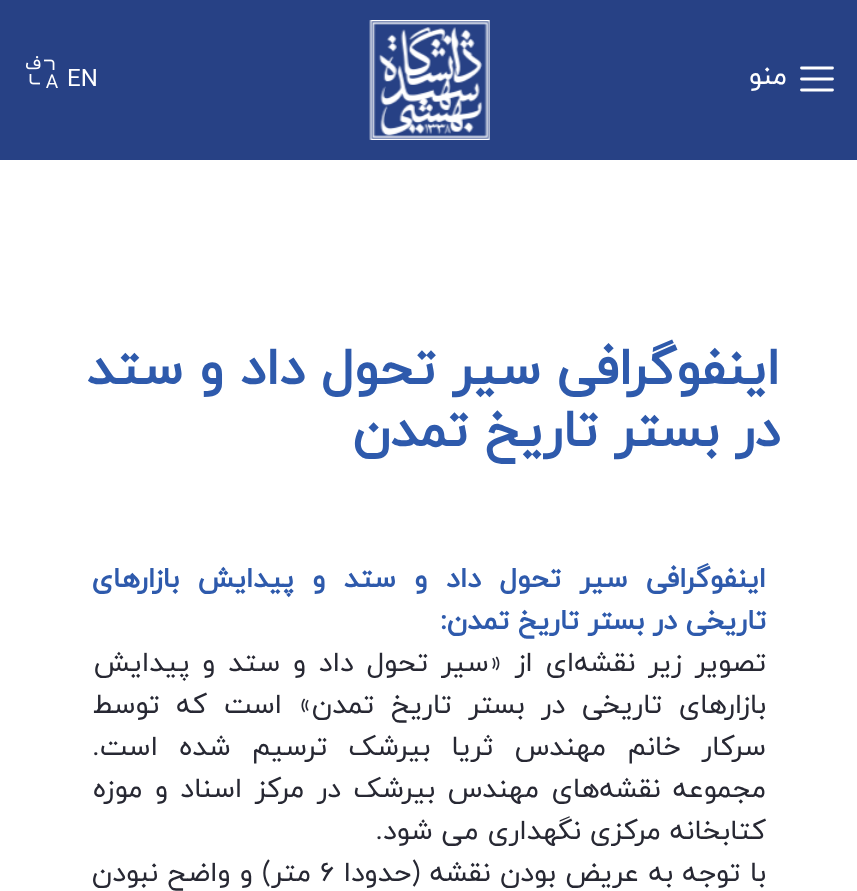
(async () => {
const canvas = document.querySelector("canvas")
canvas.width = 857
canvas.height = 891
const c = canvas.getContext("2d")
c.miterLimit = 4
c.fontKerning = "normal"
function T(s,x,y){c.fillText(s,x,y)}
function R(x,y,w,h){c.fillRect(x,y,w,h)}
async function I(src,x,y,w,h){const img=new Image();img.src=src;await img.decode();c.drawImage(img,x,y,w,h)}
let path
c.fillStyle="#fff"
R(0,0,857,891)
c.fillStyle="#274185"
R(0,0,857,160)
path = new Path2D("M801.5 68h31m-31 11h31m-31 11h31")
c.strokeStyle="#fff"
c.lineWidth=2.8
c.lineCap="round"
c.stroke(path)
c.direction="rtl"
c.font="28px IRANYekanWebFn"
c.fillStyle="#fff"
T("منو",787,84)
await I("1.png",369,20,121,120)
c.direction="ltr"
c.font="24px IRANYekanWebFn"
T("EN",67,86)
await I("2.png",26,56,32,32)
c.direction="rtl"
c.font="bold 52px IRANYekanWebFn"
c.fillStyle="#2e5aac"
T("اینفوگرافی سیر تحول داد و ستد",780,384)
T("در بستر تاریخ تمدن",780,446)
c.wordSpacing="9.75px"
c.font="bold 28px IRANYekanWebFn"
T("اینفوگرافی سیر تحول داد و ستد و پیدایش بازارهای",766,587)
c.wordSpacing="0px"
T("تاریخی در بستر تاریخ تمدن:",766,629)
c.wordSpacing="4px"
c.font="28px IRANYekanWebFn"
c.fillStyle="#272833"
T("تصویر زیر نقشه‌ای از «سیر تحول داد و ستد و پیدایش",766,671)
c.wordSpacing="7.75px"
T("بازارهای تاریخی در بستر تاریخ تمدن» است که توسط",766,713)
c.wordSpacing="12.25px"
T("سرکار خانم مهندس ثریا بیرشک ترسیم شده است.",766,755)
c.wordSpacing="3.5px"
T("مجموعه نقشه‌های مهندس بیرشک در مرکز اسناد و موزه",766,797)
c.wordSpacing="0px"
T("کتابخانه مرکزی نگهداری می شود.",766,839)
c.wordSpacing="0.5px"
T("با توجه به عریض بودن نقشه (حدودا",766,881)
c.wordSpacing="0px"
c.direction="ltr"
T("6",320,881)
c.wordSpacing="0.5px"
c.direction="rtl"
T("متر) و واضح نبودن",311,881)
})()
